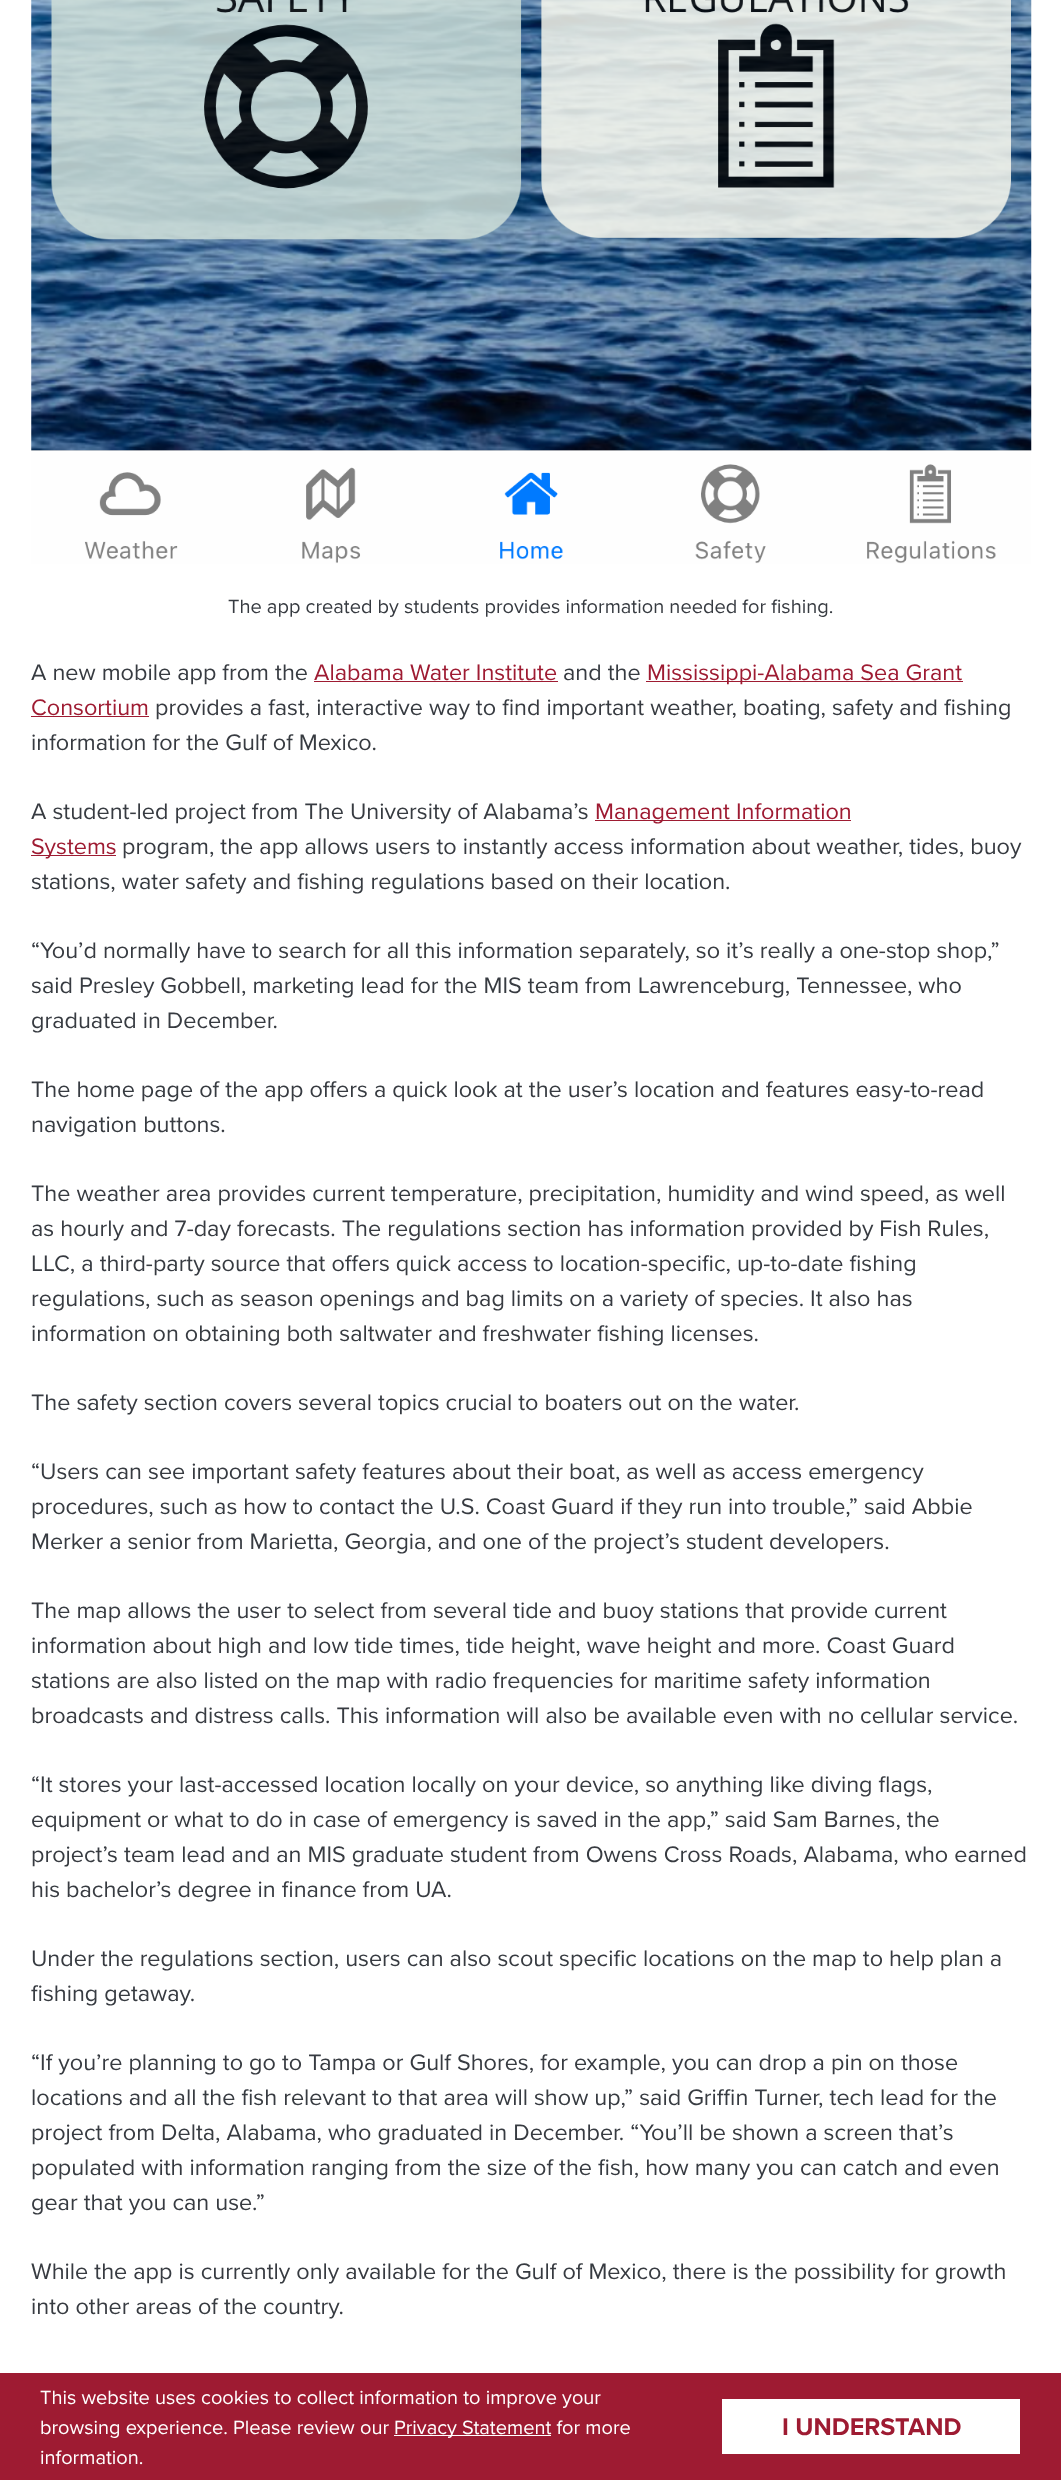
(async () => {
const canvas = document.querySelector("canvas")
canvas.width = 1061
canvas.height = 2480
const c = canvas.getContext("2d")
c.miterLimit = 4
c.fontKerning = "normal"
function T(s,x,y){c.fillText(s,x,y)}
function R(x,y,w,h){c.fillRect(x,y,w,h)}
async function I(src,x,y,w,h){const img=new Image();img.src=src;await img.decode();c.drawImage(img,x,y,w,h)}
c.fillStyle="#fff"
R(0,0,1061,2480)
await I("1.png",31,0,1001,564)
c.font="20px Proxima Nova"
c.fillStyle="#373b41"
T("The app created by students provides information needed for fishing.",228,613)
c.font="23.4px Proxima Nova"
T("A new mobile app from the",31,680)
c.fillStyle="#9e1b32"
T("Alabama Water Institute",314,680)
R(314,681,244,1)
c.fillStyle="#373b41"
T("and the",563,680)
c.fillStyle="#9e1b32"
R(646,681,317,1)
T("Mississippi-Alabama Sea Grant",647,680)
T("Consortium",31,715)
R(31,716,118,1)
c.fillStyle="#373b41"
T("provides a fast, interactive way to find important weather, boating, safety and fishing",155,715)
T("information for the Gulf of Mexico.",31,750)
T("A student-led project from The University of Alabama’s",31,819)
c.fillStyle="#9e1b32"
R(595,820,256,1)
T("Management Information",595,819)
R(31,855,85,1)
T("Systems",31,854)
c.fillStyle="#373b41"
T("program, the app allows users to instantly access information about weather, tides, buoy",122,854)
T("stations, water safety and fishing regulations based on their location.",31,889)
T("“You’d normally have to search for all this information separately, so it’s really a one-stop shop,”",31,958)
T("said Presley Gobbell, marketing lead for the MIS team from Lawrenceburg, Tennessee, who",31,993)
T("graduated in December.",31,1028)
T("The home page of the app offers a quick look at the user’s location and features easy-to-read",31,1097)
T("navigation buttons.",31,1132)
T("The weather area provides current temperature, precipitation, humidity and wind speed, as well",31,1201)
T("as hourly and 7-day forecasts. The regulations section has information provided by Fish Rules,",31,1236)
T("LLC, a third-party source that offers quick access to location-specific, up-to-date fishing",31,1271)
T("regulations, such as season openings and bag limits on a variety of species. It also has",31,1306)
T("information on obtaining both saltwater and freshwater fishing licenses.",31,1341)
T("The safety section covers several topics crucial to boaters out on the water.",31,1410)
T("“Users can see important safety features about their boat, as well as access emergency",31,1479)
T("procedures, such as how to contact the U.S. Coast Guard if they run into trouble,” said Abbie",31,1514)
T("Merker a senior from Marietta, Georgia, and one of the project’s student developers.",31,1549)
T("The map allows the user to select from several tide and buoy stations that provide current",31,1618)
T("information about high and low tide times, tide height, wave height and more. Coast Guard",31,1653)
T("stations are also listed on the map with radio frequencies for maritime safety information",31,1688)
T("broadcasts and distress calls. This information will also be available even with no cellular service.",31,1723)
T("“It stores your last-accessed location locally on your device, so anything like diving flags,",31,1792)
T("equipment or what to do in case of emergency is saved in the app,” said Sam Barnes, the",31,1827)
T("project’s team lead and an MIS graduate student from Owens Cross Roads, Alabama, who earned",31,1862)
T("his bachelor’s degree in finance from UA.",31,1897)
T("Under the regulations section, users can also scout specific locations on the map to help plan a",31,1966)
T("fishing getaway.",31,2001)
T("“If you’re planning to go to Tampa or Gulf Shores, for example, you can drop a pin on those",31,2070)
T("locations and all the fish relevant to that area will show up,” said Griffin Turner, tech lead for the",31,2105)
T("project from Delta, Alabama, who graduated in December. “You’ll be shown a screen that’s",31,2140)
T("populated with information ranging from the size of the fish, how many you can catch and even",31,2175)
T("gear that you can use.”",31,2210)
T("While the app is currently only available for the Gulf of Mexico, there is the possibility for growth",31,2279)
T("into other areas of the country.",31,2314)
c.fillStyle="#9e1b32"
R(0,2373,1061,107)
c.font="20px Proxima Nova"
c.fillStyle="#fff"
T("This website uses cookies to collect information to improve your",40,2404)
T("browsing experience. Please review our",40,2434)
R(394,2435,157,1)
T("Privacy Statement for more",394,2434)
T("information.",40,2464)
R(722,2399,298,55)
c.font="bold 25px Proxima Nova"
c.fillStyle="#9e1b32"
T("I UNDERSTAND",782,2435)
})()
